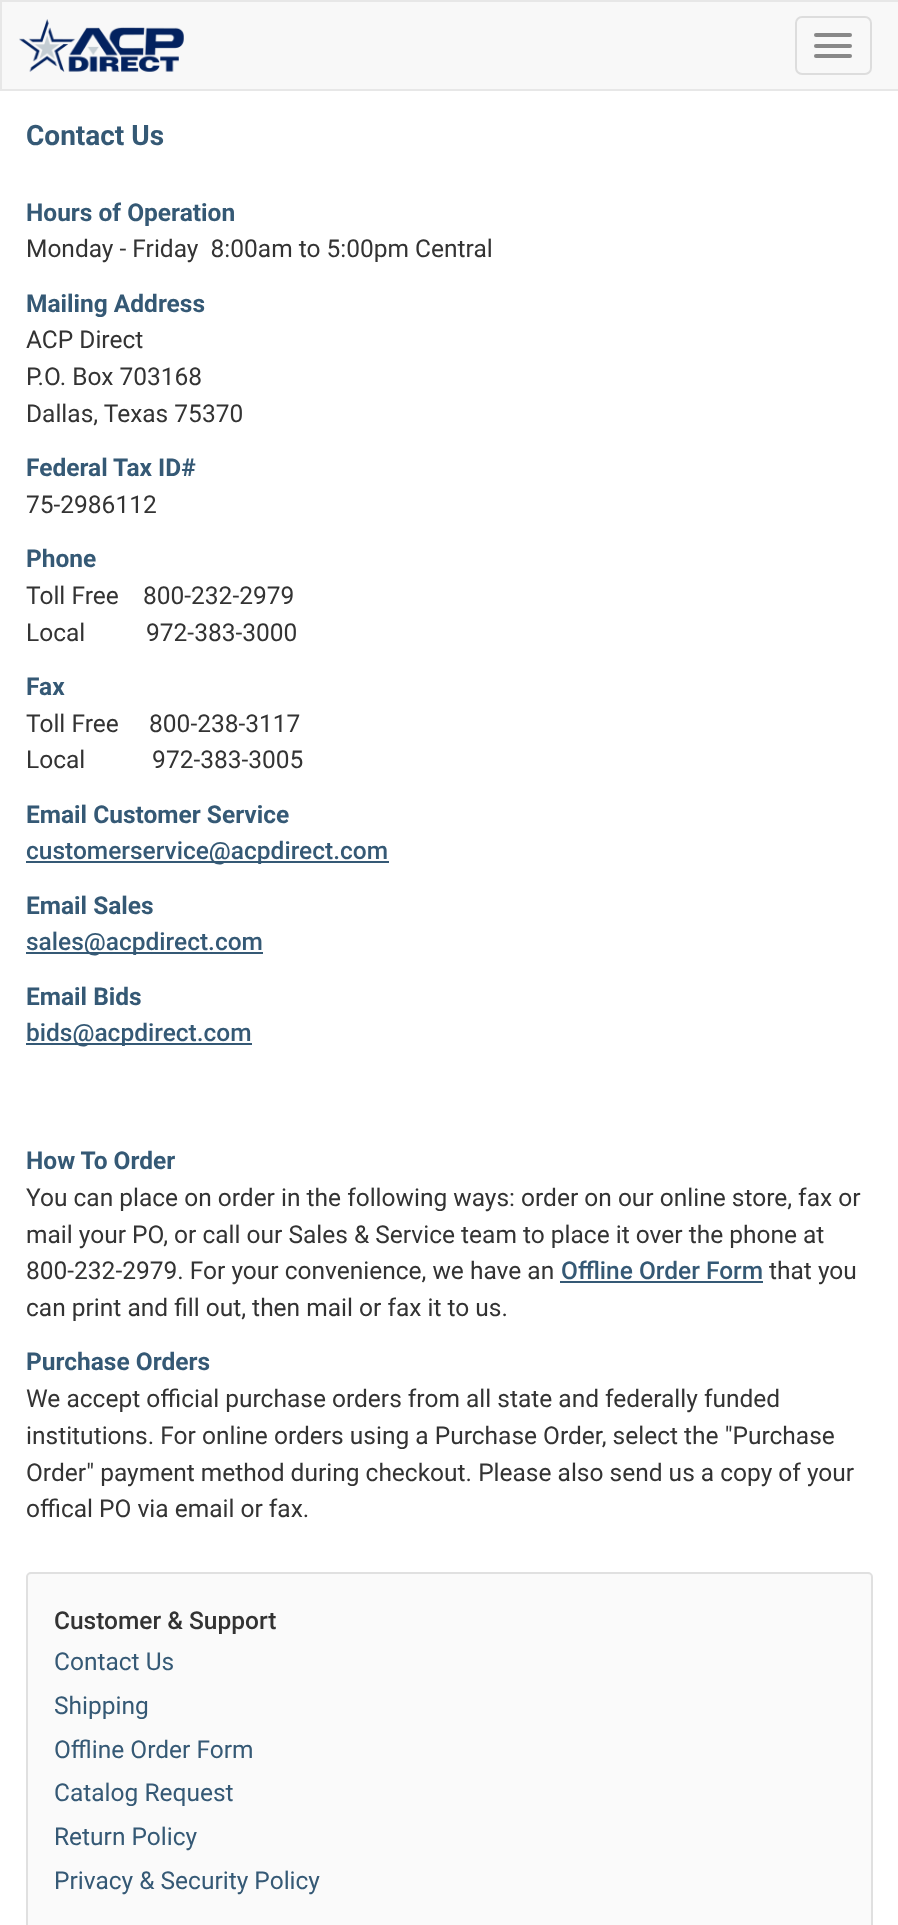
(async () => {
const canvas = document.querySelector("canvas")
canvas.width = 898
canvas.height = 1925
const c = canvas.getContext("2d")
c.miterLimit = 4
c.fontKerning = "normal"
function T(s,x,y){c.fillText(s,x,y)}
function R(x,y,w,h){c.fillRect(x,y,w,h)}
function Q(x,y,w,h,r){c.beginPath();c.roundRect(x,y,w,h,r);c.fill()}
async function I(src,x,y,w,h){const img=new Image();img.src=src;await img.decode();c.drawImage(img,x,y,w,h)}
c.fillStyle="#fff"
R(0,0,898,1925)
c.fillStyle="#f8f8f8"
c.beginPath()
c.rect(1,1,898,89)
c.fill()
c.strokeStyle="#e7e7e7"
c.lineWidth=2
c.stroke()
await I("1.png",19,19,165,53)
c.beginPath()
c.roundRect(796,17,75,57,6)
c.strokeStyle="#ddd"
c.stroke()
c.fillStyle="#888"
Q(814,33,38,4,2)
Q(814,44,38,4,2)
Q(814,54,38,4,2)
c.font="bold 28px Roboto"
c.fillStyle="#355975"
T("Contact Us",26,145)
c.font="bold 24.5px Roboto"
T("Hours of Operation",26,221)
c.font="24.5px Roboto"
c.fillStyle="#333"
T("Monday - Friday  8:00am to 5:00pm Central",26,257)
c.font="bold 24.5px Roboto"
c.fillStyle="#355975"
T("Mailing Address",26,312)
c.font="24.5px Roboto"
c.fillStyle="#333"
T("ACP Direct",26,348)
T("P.O. Box 703168",26,385)
T("Dallas, Texas 75370",26,422)
c.font="bold 24.5px Roboto"
c.fillStyle="#355975"
T("Federal Tax ID#",26,476)
c.font="24.5px Roboto"
c.fillStyle="#333"
T("75-2986112",26,513)
c.font="bold 24.5px Roboto"
c.fillStyle="#355975"
T("Phone",26,567)
c.font="24.5px Roboto"
c.fillStyle="#333"
T("Toll Free    800-232-2979",26,604)
T("Local          972-383-3000",26,641)
c.font="bold 24.5px Roboto"
c.fillStyle="#355975"
T("Fax",26,695)
c.font="24.5px Roboto"
c.fillStyle="#333"
T("Toll Free     800-238-3117",26,732)
T("Local           972-383-3005",26,768)
c.font="bold 24.5px Roboto"
c.fillStyle="#355975"
T("Email Customer Service",26,823)
R(26,861,363,2)
c.font="500 24.5px Roboto"
T("customerservice@acpdirect.com",26,859)
c.font="bold 24.5px Roboto"
T("Email Sales",26,914)
R(26,952,237,2)
c.font="500 24.5px Roboto"
T("sales@acpdirect.com",26,950)
c.font="bold 24.5px Roboto"
T("Email Bids",26,1005)
R(26,1043,226,2)
c.font="500 24.5px Roboto"
T("bids@acpdirect.com",26,1041)
c.font="bold 24.5px Roboto"
T("How To Order",26,1169)
c.font="24.5px Roboto"
c.fillStyle="#333"
T("You can place on order in the following ways: order on our online store, fax or",26,1206)
T("mail your PO, or call our Sales & Service team to place it over the phone at",26,1243)
T("800-232-2979. For your convenience, we have an",26,1279)
c.font="500 24.5px Roboto"
c.fillStyle="#355975"
T("Offline Order Form",561,1279)
R(560,1281,203,2)
c.font="24.5px Roboto"
c.fillStyle="#333"
T("that you",769,1279)
T("can print and fill out, then mail or fax it to us.",26,1316)
c.font="bold 24.5px Roboto"
c.fillStyle="#355975"
T("Purchase Orders",26,1370)
c.font="24.5px Roboto"
c.fillStyle="#333"
T("We accept official purchase orders from all state and federally funded",26,1407)
T("institutions. For online orders using a Purchase Order, select the \"Purchase",26,1444)
T("Order\" payment method during checkout. Please also send us a copy of your",26,1481)
T("offical PO via email or fax.",26,1517)
c.fillStyle="#fafafa"
c.beginPath()
c.roundRect(27,1573,845,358,4)
c.fill()
c.strokeStyle="#e0e0e0"
c.stroke()
c.font="500 24.5px Roboto"
c.fillStyle="#333"
T("Customer & Support",54,1629)
c.font="24.5px Roboto"
c.fillStyle="#355975"
T("Contact Us",54,1670)
T("Shipping",54,1714)
T("Offline Order Form",54,1758)
T("Catalog Request",54,1801)
T("Return Policy",54,1845)
T("Privacy & Security Policy",54,1889)
})()
